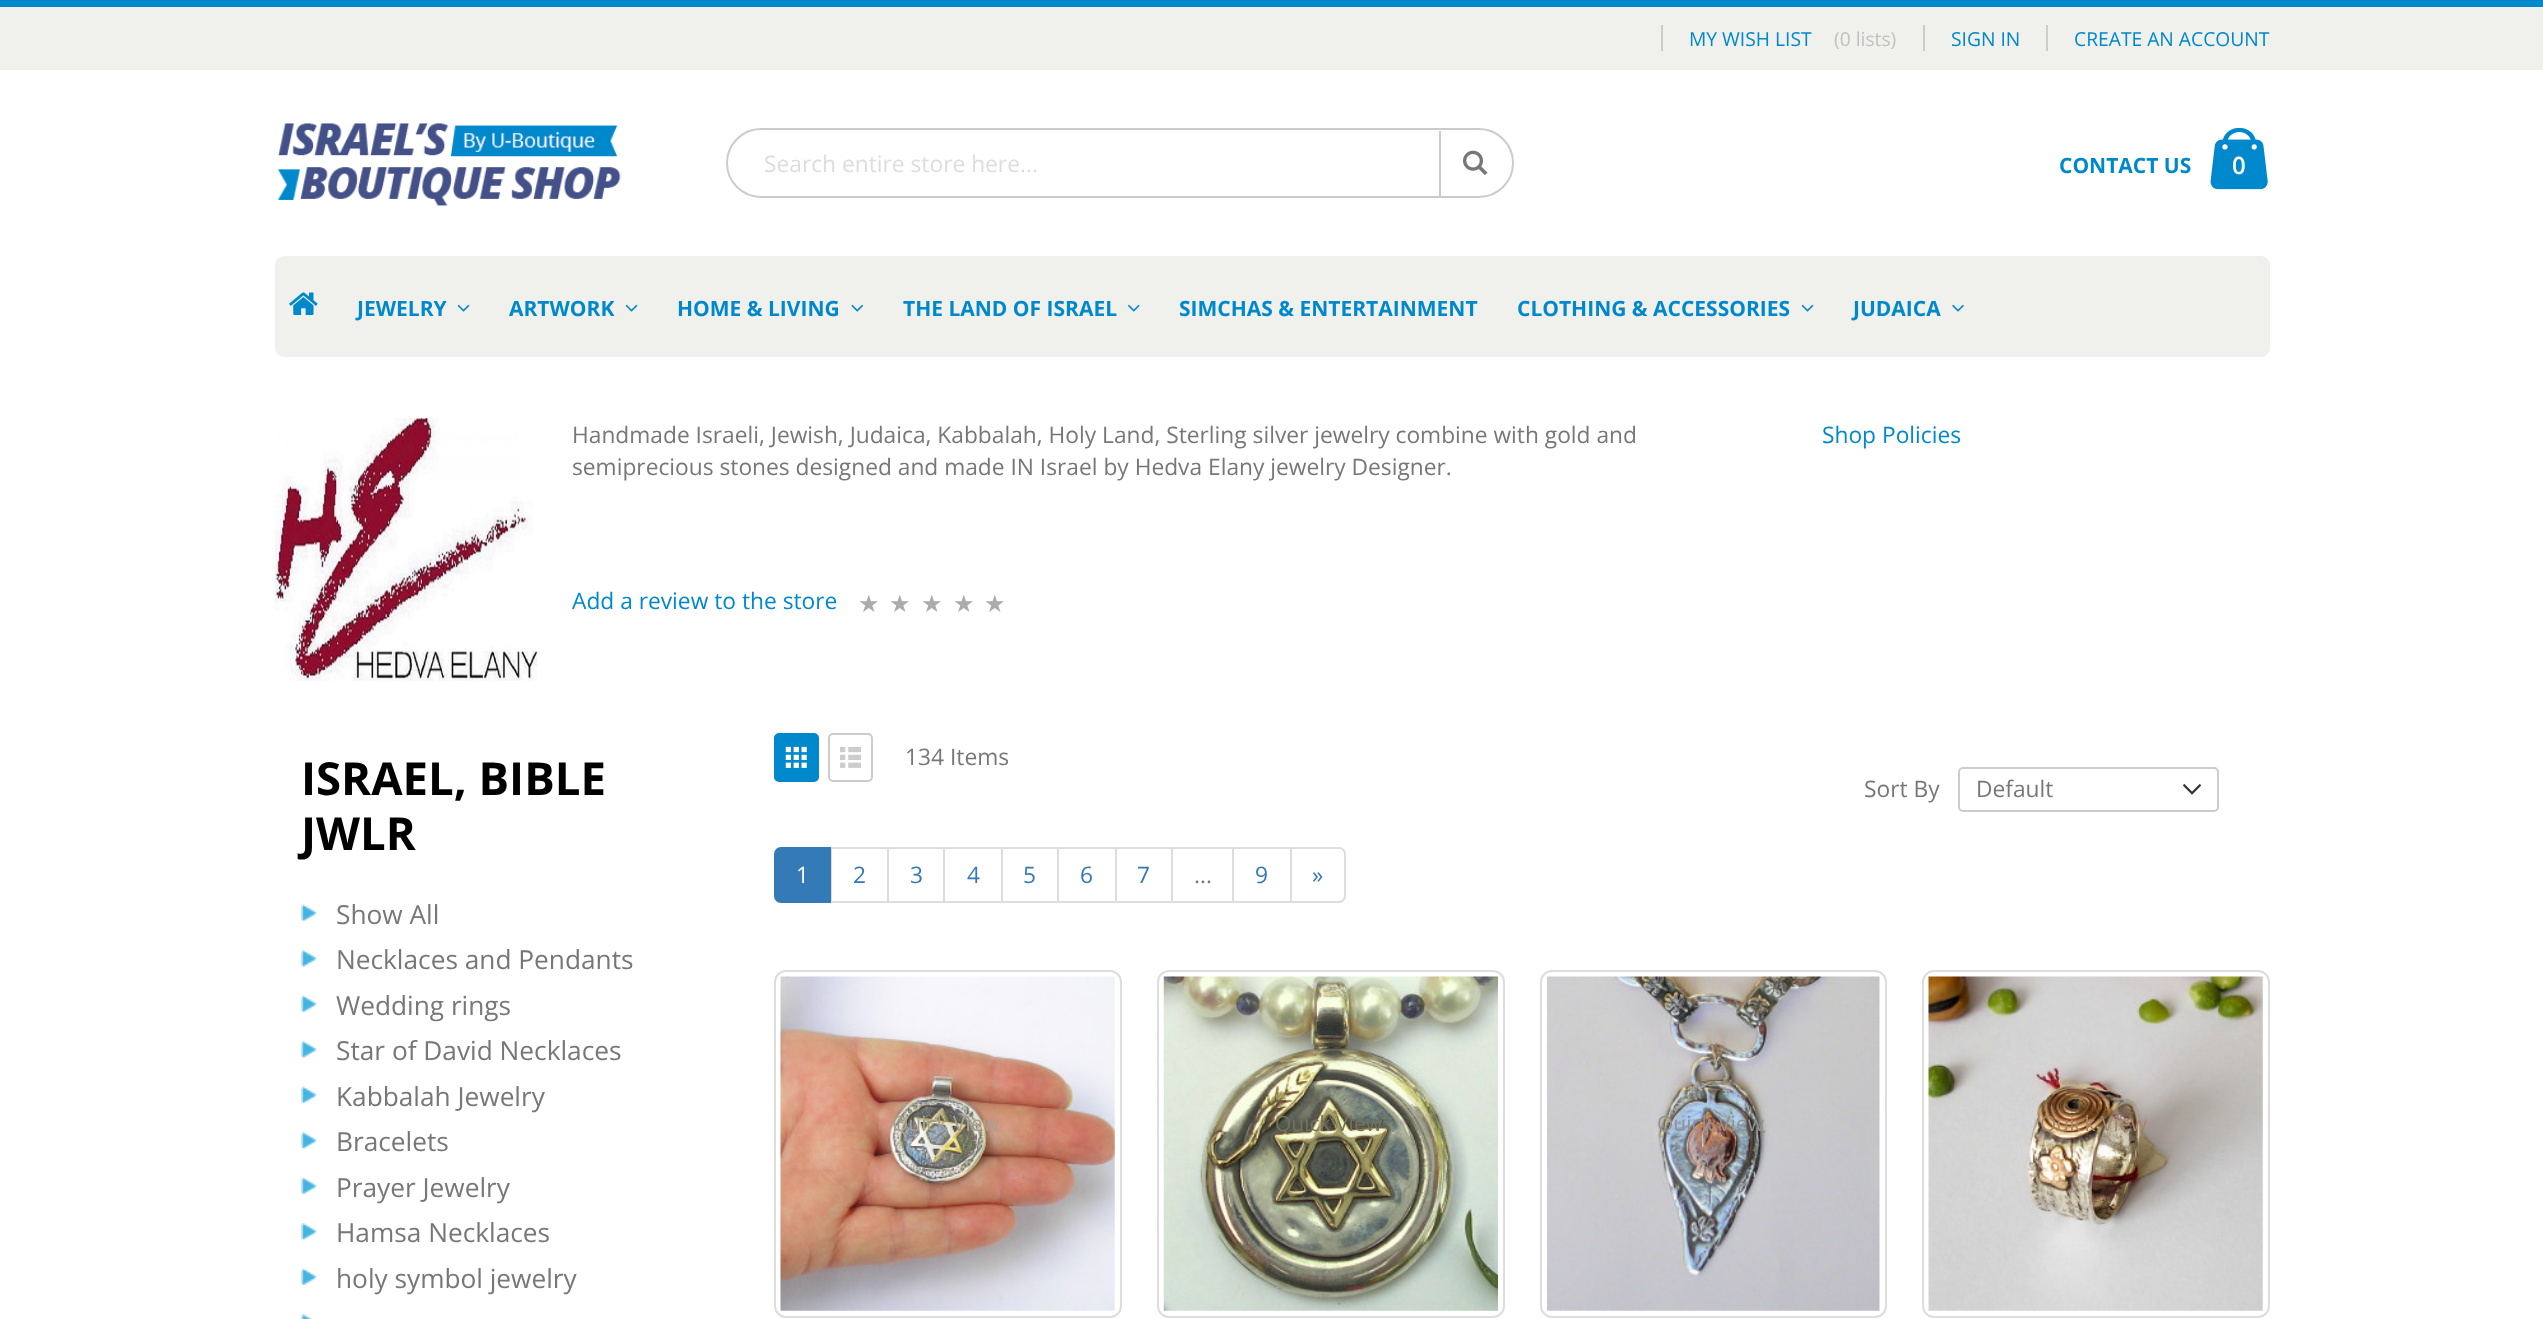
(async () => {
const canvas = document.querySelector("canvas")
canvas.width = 2543
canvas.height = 1319
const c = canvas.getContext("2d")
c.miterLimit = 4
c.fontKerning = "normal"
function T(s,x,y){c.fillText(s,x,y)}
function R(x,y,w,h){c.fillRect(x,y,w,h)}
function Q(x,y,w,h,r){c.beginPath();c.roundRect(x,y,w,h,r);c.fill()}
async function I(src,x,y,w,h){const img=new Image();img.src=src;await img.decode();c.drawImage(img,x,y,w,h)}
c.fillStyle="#fff"
R(0,0,2543,1319)
c.fillStyle="#08c"
R(0,0,2543,7)
c.fillStyle="#f0f0ed"
R(0,7,2543,63)
c.fillStyle="#ccc"
R(1661,25,2,26)
c.font="19.25px Open Sans"
c.fillStyle="#08c"
T("MY WISH LIST",1689,46)
c.fillStyle="#c1c1c1"
T("(0 lists)",1834,46)
c.fillStyle="#ccc"
R(1923,25,2,26)
c.fillStyle="#08c"
T("SIGN IN",1951,46)
c.fillStyle="#ccc"
R(2046,25,2,26)
c.fillStyle="#08c"
T("CREATE AN ACCOUNT",2074,46)
await I("1.png",278,123,343,83)
c.beginPath()
c.roundRect(727,129,786,68,34)
c.strokeStyle="#ccc"
c.lineWidth=2
c.stroke()
c.font="22.75px Open Sans"
c.fillStyle="#ddd"
T("Search entire store here...",764,172)
c.fillStyle="#ccc"
R(1439,131,2,65)
await I("2.png",1463,150,25,26)
c.font="bold 21px Open Sans"
c.fillStyle="#08c"
T("CONTACT US",2059,173)
await I("3.png",2210,128,58,62)
c.font="600 24px Open Sans"
c.fillStyle="#fff"
T("0",2232,174)
c.fillStyle="#f0f0ed"
Q(275,256,1995,101,9)
await I("4.png",289,292,29,23)
c.font="bold 21px Open Sans"
c.fillStyle="#08c"
T("JEWELRY",357,316)
await I("5.png",457,304,13,8)
T("ARTWORK",509,316)
await I("5.png",625,304,13,8)
T("HOME & LIVING",677,316)
await I("6.png",851,304,12,8)
T("THE LAND OF ISRAEL",903,316)
await I("7.png",1128,304,12,8)
T("SIMCHAS & ENTERTAINMENT",1179,316)
T("CLOTHING & ACCESSORIES",1517,316)
await I("5.png",1801,304,13,8)
T("JUDAICA",1853,316)
await I("8.png",1952,304,12,8)
await I("9.png",274,418,264,263)
c.font="22.75px Open Sans"
c.fillStyle="#777"
T("Handmade Israeli, Jewish, Judaica, Kabbalah, Holy Land, Sterling silver jewelry combine with gold and",572,443)
T("semiprecious stones designed and made IN Israel by Hedva Elany jewelry Designer.",572,475)
c.fillStyle="#08c"
T("Add a review to the store",572,609)
c.font="24px DejaVu Sans"
c.fillStyle="#ababab"
T("★",858,612)
T("★",889,612)
T("★",921,612)
T("★",953,612)
T("★",984,612)
c.font="22.75px Open Sans"
c.fillStyle="#08c"
T("Shop Policies",1822,443)
c.font="bold 45.5px Open Sans"
c.fillStyle="#000"
T("ISRAEL, BIBLE",301,795)
T("JWLR",301,850)
await I("10.png",301,904,16,18)
c.font="26.25px Open Sans"
c.fillStyle="#777"
T("Show All",336,924)
await I("11.png",301,950,16,18)
T("Necklaces and Pendants",336,969)
await I("10.png",301,995,16,18)
T("Wedding rings",336,1015)
await I("11.png",301,1041,16,18)
T("Star of David Necklaces",336,1060)
await I("10.png",301,1086,16,18)
T("Kabbalah Jewelry",336,1106)
await I("11.png",301,1132,16,18)
T("Bracelets",336,1151)
await I("10.png",301,1177,16,18)
T("Prayer Jewelry",336,1197)
await I("11.png",301,1223,16,18)
T("Hamsa Necklaces",336,1242)
await I("10.png",301,1268,16,18)
T("holy symbol jewelry",336,1288)
await I("12.png",301,1314,11,5)
c.fillStyle="#08c"
c.beginPath()
c.roundRect(775,734,43,47,4)
c.fill()
c.strokeStyle="#08c"
c.stroke()
await I("13.png",785,746,22,22)
c.beginPath()
c.roundRect(829,734,43,47,4)
c.strokeStyle="#ccc"
c.stroke()
await I("14.png",840,746,21,22)
c.font="22.75px Open Sans"
c.fillStyle="#777"
T("134 Items",905,765)
T("Sort By",1864,797)
await I("15.png",2183,783,18,12)
c.beginPath()
c.roundRect(1959,768,259,43,4)
c.stroke()
T("Default",1976,797)
c.strokeStyle="#ddd"
c.strokeRect(831,848,57,54)
c.fillStyle="#337ab7"
c.beginPath()
c.roundRect(775,848,55,54,[6,0,0,6])
c.fill()
c.strokeStyle="#337ab7"
c.stroke()
c.fillStyle="#fff"
T("1",796,883)
c.fillStyle="#337ab7"
T("2",853,883)
c.strokeStyle="#ddd"
c.strokeRect(888,848,56,54)
T("3",910,883)
c.strokeRect(944,848,58,54)
T("4",967,883)
c.strokeRect(1002,848,56,54)
T("5",1023,883)
c.strokeRect(1058,848,58,54)
T("6",1080,883)
c.strokeRect(1116,848,56,54)
T("7",1137,883)
c.strokeRect(1172,848,61,54)
c.fillStyle="#777"
T("...",1194,883)
c.strokeRect(1233,848,58,54)
c.fillStyle="#337ab7"
T("9",1255,883)
c.fillStyle="#fff"
c.beginPath()
c.roundRect(1291,848,54,54,[0,6,6,0])
c.fill()
c.stroke()
c.fillStyle="#337ab7"
T("»",1312,883)
c.beginPath()
c.roundRect(775,971,346,346,11)
c.stroke()
await I("16.png",780,976,335,335)
c.font="21px Open Sans"
c.fillStyle="#aaa090"
T("Quick View",892,1131)
c.beginPath()
c.roundRect(1158,971,346,346,11)
c.stroke()
await I("17.png",1163,976,335,335)
c.fillStyle="#72725d"
T("Quick View",1275,1131)
c.beginPath()
c.roundRect(1541,971,345,346,11)
c.stroke()
await I("18.png",1547,976,333,335)
c.fillStyle="#929194"
T("Quick View",1657,1131)
c.beginPath()
c.roundRect(1923,971,346,346,11)
c.stroke()
await I("19.png",1928,976,335,335)
c.fillStyle="#a68769"
T("Quick View",2040,1131)
})()
